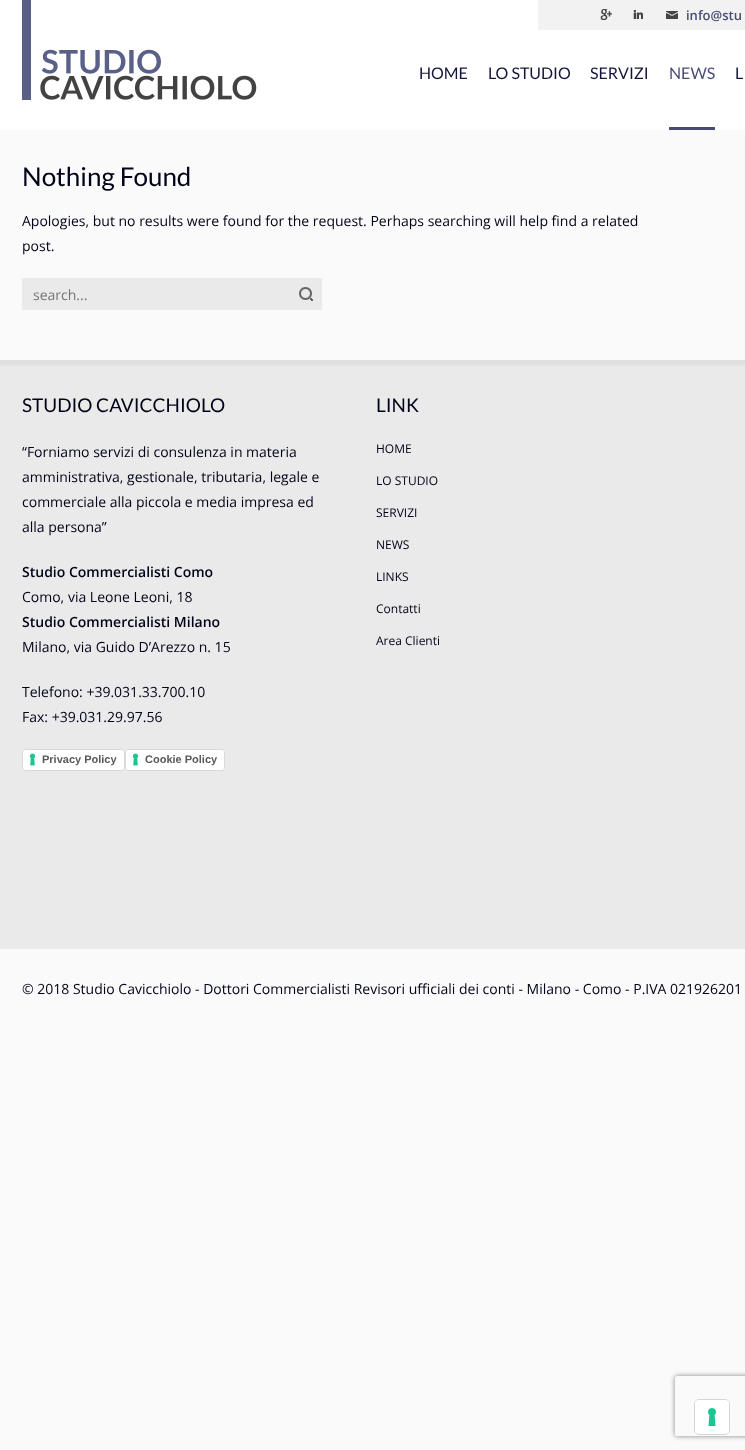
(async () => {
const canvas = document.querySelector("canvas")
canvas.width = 745
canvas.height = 1450
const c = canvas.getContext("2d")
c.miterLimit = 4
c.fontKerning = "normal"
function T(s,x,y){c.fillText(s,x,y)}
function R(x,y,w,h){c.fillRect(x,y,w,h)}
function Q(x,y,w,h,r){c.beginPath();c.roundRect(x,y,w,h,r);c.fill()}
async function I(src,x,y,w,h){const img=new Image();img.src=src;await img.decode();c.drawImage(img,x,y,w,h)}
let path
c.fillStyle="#fafafa"
R(0,0,745,1450)
c.fillStyle="#fff"
R(0,0,745,130)
await I("1.png",22,0,235,100)
c.fillStyle="#f2f2f2"
R(538,0,207,30)
await I("2.png",600,9,12,11)
await I("3.png",633,10,10,9)
await I("4.png",666,11,12,8)
c.font="600 13px Open Sans"
c.fillStyle="#484c75"
T("info@stu",686,20)
c.font="16px Lato"
c.fillStyle="#12153b"
T("HOME",419,79)
T("LO STUDIO",488,79)
T("SERVIZI",590,79)
c.fillStyle="#484c75"
R(669,127,46,3)
T("NEWS",669,79)
c.fillStyle="#12153b"
T("L",735,79)
c.font="26px Lato"
c.fillStyle="#000217"
T("Nothing Found",22,186)
c.font="14px Open Sans"
T("Apologies, but no results were found for the request. Perhaps searching will help find a related",22,226)
T("post.",22,251)
c.fillStyle="#eaeaea"
R(22,278,300,32)
c.fillStyle="#757575"
T("search...",33,300)
await I("5.png",299,287,14,14)
c.fillStyle="#eaeaea"
R(0,360,745,589)
await I("6.png",0,360,745,6)
c.font="19px Lato"
c.fillStyle="#000217"
T("STUDIO CAVICCHIOLO",22,412)
c.font="14px Open Sans"
T("“Forniamo servizi di consulenza in materia",22,457)
T("amministrativa, gestionale, tributaria, legale e",22,482)
T("commerciale alla piccola e media impresa ed",22,507)
T("alla persona”",22,532)
c.font="600 14px Open Sans"
T("Studio Commercialisti Como",22,577)
c.font="14px Open Sans"
T("Como, via Leone Leoni, 18",22,602)
c.font="600 14px Open Sans"
T("Studio Commercialisti Milano",22,627)
c.font="14px Open Sans"
T("Milano, via Guido D’Arezzo n. 15",22,652)
T("Telefono: +39.031.33.700.10",22,697)
T("Fax: +39.031.29.97.56",22,722)
c.fillStyle="#00000026"
c.filter="blur(0.5px)"
c.beginPath()
c.roundRect(23,751,101,20,2)
c.fill()
c.filter="none"
c.fillStyle="#fff"
Q(22,749,103,22,3)
await I("7.png",29,753,7,13)
c.beginPath()
c.roundRect(22.5,749.5,102,21,2.5)
c.strokeStyle="#00000026"
c.stroke()
c.font="bold 11px Liberation Sans"
c.fillStyle="#595959"
T("Privacy Policy",42,763)
c.fillStyle="#00000026"
c.filter="blur(0.5px)"
c.beginPath()
c.roundRect(126,751,98,20,2)
c.fill()
c.filter="none"
c.fillStyle="#fff"
Q(125,749,100,22,3)
await I("7.png",132,753,7,13)
c.beginPath()
c.roundRect(125.5,749.5,99,21,2.5)
c.stroke()
c.fillStyle="#595959"
T("Cookie Policy",145,763)
c.font="19px Lato"
c.fillStyle="#000217"
T("LINK",376,412)
c.font="12px Open Sans"
T("HOME",376,453)
T("LO STUDIO",376,485)
T("SERVIZI",376,517)
T("NEWS",376,549)
T("LINKS",376,581)
T("Contatti",376,613)
T("Area Clienti",376,645)
c.font="14px Open Sans"
T("© 2018 Studio Cavicchiolo - Dottori Commercialisti Revisori ufficiali dei conti - Milano - Como - P.IVA 021926201",22,994)
c.save()
path = new Path2D("M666 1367h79v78h-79zm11 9h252c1 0 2 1 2 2v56c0 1-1 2-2 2h-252c-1 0-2-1-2-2v-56c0-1 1-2 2-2z")
c.clip(path,"evenodd")
c.fillStyle="#808080"
c.filter="blur(2.5px)"
c.beginPath()
c.roundRect(675,1376,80,60,2)
c.fill()
c.filter="none"
c.restore()
c.beginPath()
c.roundRect(694.5,1399.5,35,35,4.5)
c.strokeStyle="#d5d5d5"
c.stroke()
c.fillStyle="#fff"
Q(695,1400,34,34,4)
await I("8.png",708,1408,8,18)
})()
